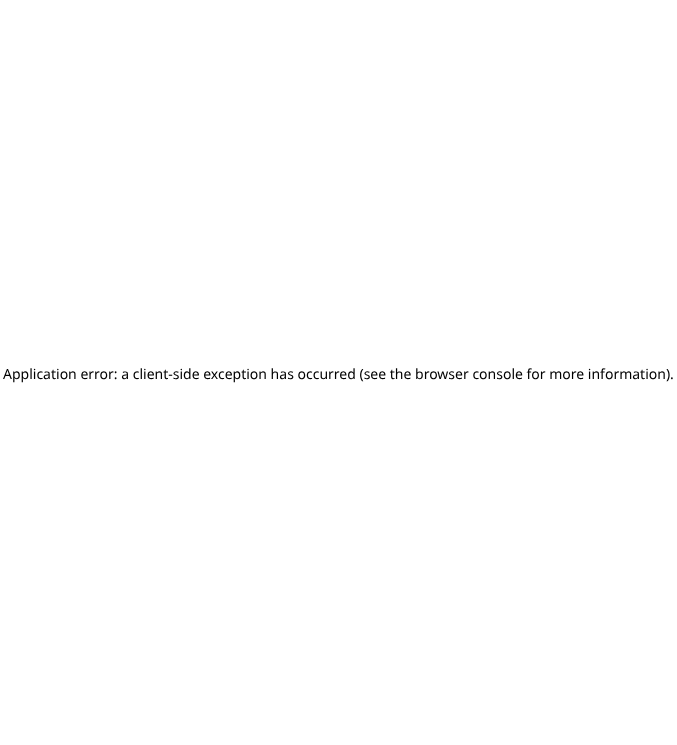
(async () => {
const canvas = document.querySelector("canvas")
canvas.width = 677
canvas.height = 745
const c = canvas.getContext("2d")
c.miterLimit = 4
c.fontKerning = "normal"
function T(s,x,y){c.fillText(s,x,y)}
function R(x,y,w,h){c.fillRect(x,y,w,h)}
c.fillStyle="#fff"
R(0,0,677,745)
c.font="14px Noto Sans"
c.fillStyle="#000"
T("Application error: a client-side exception has occurred (see the browser console for more information).",3,379)
})()
